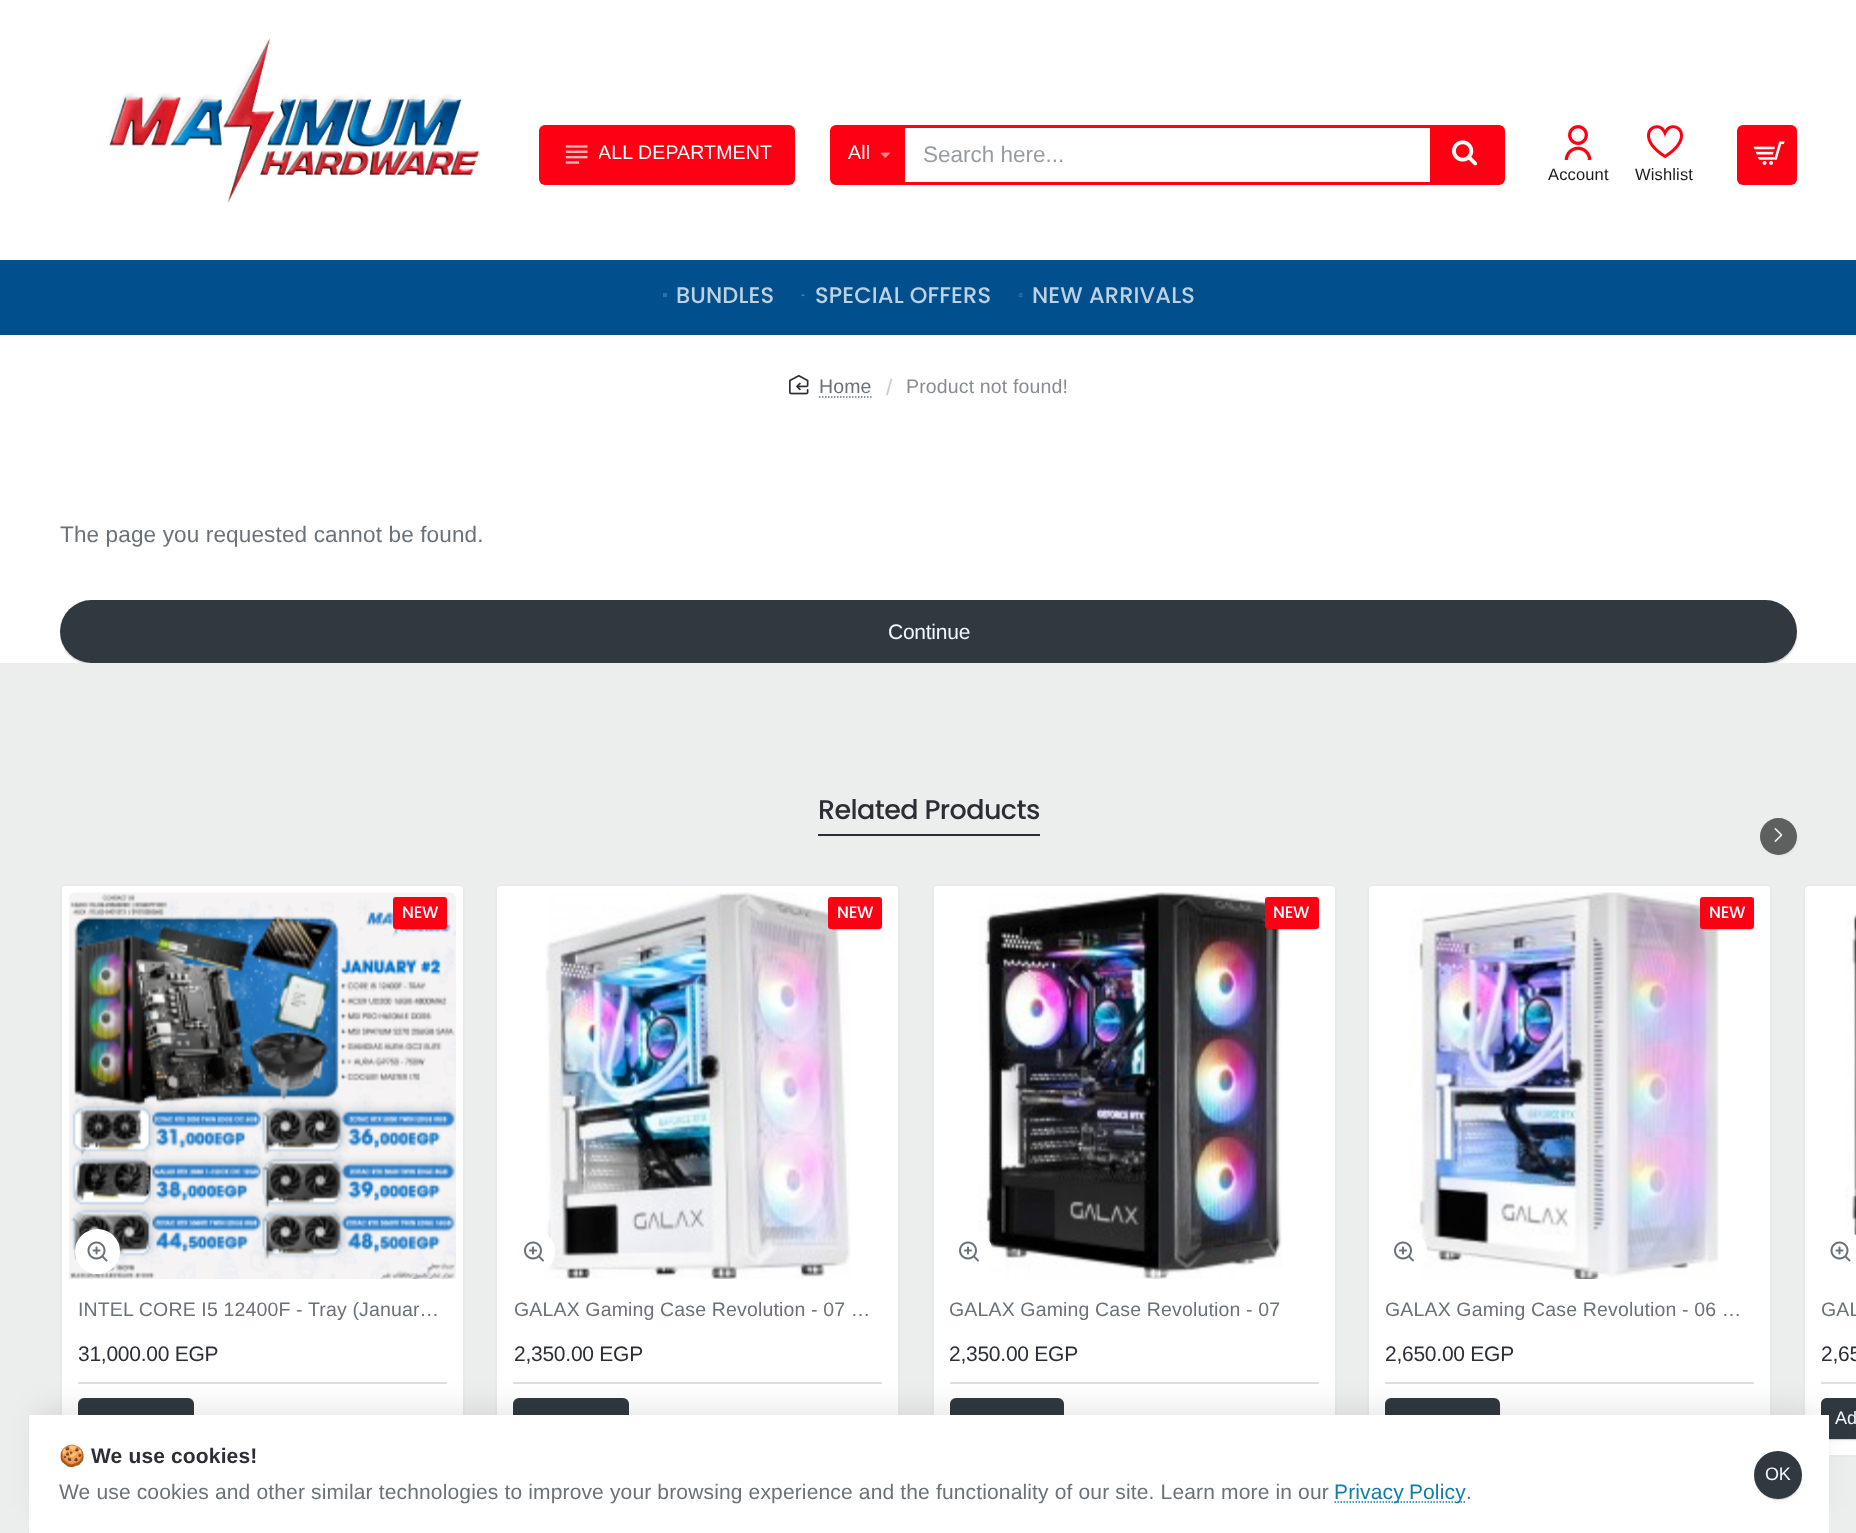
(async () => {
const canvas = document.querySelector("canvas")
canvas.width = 1856
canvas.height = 1533
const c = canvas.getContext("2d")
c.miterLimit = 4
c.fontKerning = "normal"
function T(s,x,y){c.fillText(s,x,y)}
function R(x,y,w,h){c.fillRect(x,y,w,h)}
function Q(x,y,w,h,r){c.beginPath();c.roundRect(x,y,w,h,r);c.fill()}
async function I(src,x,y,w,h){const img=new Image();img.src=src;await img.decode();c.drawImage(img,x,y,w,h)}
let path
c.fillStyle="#fff"
R(0,0,1856,1533)
await I("1.png",109,38,371,165)
c.fillStyle="#fd0013"
Q(539,125,256,60,6)
await I("2.png",565,145,23,19)
c.save()
c.beginPath()
c.rect(599,143,174,22)
c.clip()
c.letterSpacing="0.15px"
c.font="19.5px Liberation Sans"
c.fillStyle="#fff"
T("ALL DEPARTMENT",598,159)
c.restore()
c.beginPath()
c.roundRect(831.5,126.5,672,57,4.5)
c.strokeStyle="#fd0013"
c.lineWidth=3
c.stroke()
R(833,128,72,54)
c.letterSpacing="0.15px"
c.font="19.5px Liberation Sans"
c.fillStyle="#fff"
T("All",848,159)
await I("3.png",880,152,10,6)
c.letterSpacing="0px"
c.font="22.5px Liberation Sans"
c.fillStyle="#969ca1"
T("Search here...",923,162)
c.fillStyle="#fd0013"
R(1430,128,72,54)
await I("4.png",1452,140,26,26)
await I("5.png",1564,125,28,35)
c.letterSpacing="0.15px"
c.font="16.5px Liberation Sans"
c.fillStyle="#1a1a1a"
T("Account",1548,180)
await I("6.png",1647,125,36,34)
T("Wishlist",1635,180)
c.fillStyle="#fd0013"
Q(1737,125,60,60,6)
await I("7.png",1753,141,32,24)
c.fillStyle="#014f8d"
R(0,260,1856,75)
c.fillStyle="#3170a1"
R(663,293,4,4)
c.font="500 22.5px Poppins"
c.fillStyle="#bdd1e1"
T("BUNDLES",676,303)
await I("8.png",801,294,5,3)
T("SPECIAL OFFERS",815,303)
await I("9.png",1018,292,5,6)
T("NEW ARRIVALS",1032,303)
await I("10.png",789,374,20,21)
c.font="19.5px Liberation Sans"
c.fillStyle="#697278"
T("Home",819,393)
path = new Path2D("M819 397h52.5")
c.strokeStyle="#697278"
c.lineWidth=1.5
c.setLineDash([1.5,1.5])
c.stroke(path)
c.font="22.5px Liberation Sans"
c.fillStyle="#ccc"
T("/",886,395)
c.font="19.5px Liberation Sans"
c.fillStyle="#878e93"
T("Product not found!",906,393)
c.font="22.5px Liberation Sans"
c.fillStyle="#697278"
T("The page you requested cannot be found.",60,542)
c.fillStyle="#0000001a"
c.filter="blur(2px)"
c.beginPath()
c.roundRect(66,608,1730,55,27.5)
c.fill()
c.filter="none"
c.filter="blur(1px)"
c.beginPath()
c.roundRect(63,603,1733,60,30)
c.fill()
c.filter="none"
c.filter="blur(0.5px)"
c.beginPath()
c.roundRect(60,602,1737,63,31.5)
c.fill()
c.filter="none"
c.fillStyle="#303940"
Q(60,600,1737,63,31.5)
c.letterSpacing="-0.25px"
c.font="21px Liberation Sans"
c.fillStyle="#f1f8ff"
T("Continue",888,639)
c.fillStyle="#eceeee"
R(0,663,1856,870)
c.fillStyle="#2c2e35"
R(818,834,222,2)
c.letterSpacing="-0.6px"
c.font="500 27px Poppins"
T("Related Products",818,819)
c.save()
path = new Path2D("M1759 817h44v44h-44zm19.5 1c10 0 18.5 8.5 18.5 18.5c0 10-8.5 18.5-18.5 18.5c-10 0-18.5-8.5-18.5-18.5c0-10 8.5-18.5 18.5-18.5z")
c.clip(path,"evenodd")
c.fillStyle="#0000001a"
c.filter="blur(2px)"
c.beginPath()
c.roundRect(1766,824,30,30,15)
c.fill()
c.filter="none"
c.restore()
c.save()
path = new Path2D("M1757 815h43v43h-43zm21.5 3c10 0 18.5 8.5 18.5 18.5c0 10-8.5 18.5-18.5 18.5c-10 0-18.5-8.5-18.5-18.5c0-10 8.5-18.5 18.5-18.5z")
c.clip(path,"evenodd")
c.fillStyle="#0000001a"
c.filter="blur(0.5px)"
c.beginPath()
c.roundRect(1760,818,37,37,18.5)
c.fill()
c.filter="none"
c.restore()
c.fillStyle="#222222b3"
c.beginPath()
c.arc(1778.5,836.5,18.5,0,7)
c.fill()
await I("11.png",1774,828,9,14)
c.fillStyle="#fff"
Q(60,884,405,573,6)
c.beginPath()
c.roundRect(61,885,403,571,5)
c.strokeStyle="#dddfe4b3"
c.lineWidth=2
c.setLineDash([])
c.stroke()
await I("12.png",69,892,387,387)
c.fillStyle="#0000001a"
c.filter="blur(2px)"
c.beginPath()
c.rect(399,905,47,24)
c.fill()
c.filter="none"
c.filter="blur(1px)"
c.beginPath()
c.roundRect(396,900,50,29,1.5)
c.fill()
c.filter="none"
c.filter="blur(0.5px)"
c.beginPath()
c.roundRect(393,899,54,31,3)
c.fill()
c.filter="none"
c.fillStyle="#fd0013"
Q(393,897,54,32,3)
c.letterSpacing="-0.25px"
c.font="500 16.5px Poppins"
c.fillStyle="#fff"
T("NEW",402,918)
c.beginPath()
c.arc(97.5,1251.5,21.5,0,7)
c.fill()
c.strokeStyle="#fff"
c.stroke()
await I("13.png",87,1241,21,21)
c.letterSpacing="0.15px"
c.font="19.5px Liberation Sans"
c.fillStyle="#697278"
T("INTEL CORE I5 12400F - Tray (Januar…",78,1316)
c.letterSpacing="-0.25px"
c.font="21px Liberation Sans"
c.fillStyle="#2c2e35"
T("31,000.00 EGP",78,1361)
c.fillStyle="#dddfe4"
R(78,1382,369,2)
c.fillStyle="#0000001a"
c.filter="blur(0.5px)"
c.beginPath()
c.roundRect(78,1400,116,40,6)
c.fill()
c.filter="none"
c.fillStyle="#303940"
Q(78,1398,116,41,6)
c.fillStyle="#fff"
Q(495,884,405,573,6)
c.beginPath()
c.roundRect(496,885,403,571,5)
c.strokeStyle="#dddfe4b3"
c.stroke()
await I("14.png",545,892,306,387)
c.fillStyle="#0000001a"
c.filter="blur(2px)"
c.beginPath()
c.rect(834,905,47,24)
c.fill()
c.filter="none"
c.filter="blur(1px)"
c.beginPath()
c.roundRect(831,900,50,29,1.5)
c.fill()
c.filter="none"
c.filter="blur(0.5px)"
c.beginPath()
c.roundRect(828,899,54,31,3)
c.fill()
c.filter="none"
c.fillStyle="#fd0013"
Q(828,897,54,32,3)
c.font="500 16.5px Poppins"
c.fillStyle="#fff"
T("NEW",837,918)
c.beginPath()
c.arc(532.5,1251.5,21.5,0,7)
c.fill()
c.strokeStyle="#fff"
c.stroke()
await I("15.png",524,1241,20,21)
c.letterSpacing="0.15px"
c.font="19.5px Liberation Sans"
c.fillStyle="#697278"
T("GALAX Gaming Case Revolution - 07 …",514,1316)
c.letterSpacing="-0.25px"
c.font="21px Liberation Sans"
c.fillStyle="#2c2e35"
T("2,350.00 EGP",514,1361)
c.fillStyle="#dddfe4"
R(513,1382,369,2)
c.fillStyle="#0000001a"
c.filter="blur(0.5px)"
c.beginPath()
c.roundRect(513,1400,116,40,6)
c.fill()
c.filter="none"
c.fillStyle="#303940"
Q(513,1398,116,41,6)
c.fillStyle="#fff"
Q(932,884,405,573,6)
c.beginPath()
c.roundRect(933,885,403,571,5)
c.strokeStyle="#dddfe4b3"
c.stroke()
await I("16.png",978,892,305,387)
c.fillStyle="#0000001a"
c.filter="blur(2px)"
c.beginPath()
c.rect(1271,905,46,24)
c.fill()
c.filter="none"
c.filter="blur(1px)"
c.beginPath()
c.roundRect(1268,900,49,29,1.5)
c.fill()
c.filter="none"
c.filter="blur(0.5px)"
c.beginPath()
c.roundRect(1265,899,54,31,3)
c.fill()
c.filter="none"
c.fillStyle="#fd0013"
Q(1265,897,54,32,3)
c.font="500 16.5px Poppins"
c.fillStyle="#fff"
T("NEW",1273,918)
c.beginPath()
c.arc(969.5,1251.5,21.5,0,7)
c.fill()
c.strokeStyle="#fff"
c.stroke()
await I("15.png",959,1241,20,21)
c.letterSpacing="0.15px"
c.font="19.5px Liberation Sans"
c.fillStyle="#697278"
T("GALAX Gaming Case Revolution - 07",949,1316)
c.letterSpacing="-0.25px"
c.font="21px Liberation Sans"
c.fillStyle="#2c2e35"
T("2,350.00 EGP",949,1361)
c.fillStyle="#dddfe4"
R(950,1382,369,2)
c.fillStyle="#0000001a"
c.filter="blur(0.5px)"
c.beginPath()
c.roundRect(950,1400,114,40,6)
c.fill()
c.filter="none"
c.fillStyle="#303940"
Q(950,1398,114,41,6)
c.fillStyle="#fff"
Q(1367,884,405,573,6)
c.beginPath()
c.roundRect(1368,885,403,571,5)
c.strokeStyle="#dddfe4b3"
c.stroke()
await I("17.png",1408,892,311,387)
c.fillStyle="#0000001a"
c.filter="blur(2px)"
c.beginPath()
c.rect(1706,905,46,24)
c.fill()
c.filter="none"
c.filter="blur(1px)"
c.beginPath()
c.roundRect(1703,900,49,29,1.5)
c.fill()
c.filter="none"
c.filter="blur(0.5px)"
c.beginPath()
c.roundRect(1700,899,54,31,3)
c.fill()
c.filter="none"
c.fillStyle="#fd0013"
Q(1700,897,54,32,3)
c.font="500 16.5px Poppins"
c.fillStyle="#fff"
T("NEW",1709,918)
c.beginPath()
c.arc(1404.5,1251.5,21.5,0,7)
c.fill()
c.strokeStyle="#fff"
c.stroke()
await I("15.png",1394,1241,20,21)
c.letterSpacing="0.15px"
c.font="19.5px Liberation Sans"
c.fillStyle="#697278"
T("GALAX Gaming Case Revolution - 06 …",1385,1316)
c.letterSpacing="-0.25px"
c.font="21px Liberation Sans"
c.fillStyle="#2c2e35"
T("2,650.00 EGP",1385,1361)
c.fillStyle="#dddfe4"
R(1385,1382,369,2)
c.fillStyle="#0000001a"
c.filter="blur(2px)"
c.beginPath()
c.roundRect(1391,1406,108,33,2)
c.fill()
c.filter="none"
c.fillStyle="#303940"
Q(1385,1398,115,41,6)
c.fillStyle="#fff"
path = new Path2D("M1809 884h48v573h-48c-3.5 0-6-2.5-6-6v-561c0-3.5 2.5-6 6-6z")
c.fill(path)
c.beginPath()
c.roundRect(1804,885,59,571,5)
c.strokeStyle="#dddfe4b3"
c.stroke()
await I("18.png",1845,914,11,322)
c.beginPath()
c.arc(1840.5,1251.5,21.5,0,7)
c.fill()
c.strokeStyle="#fff"
c.stroke()
await I("13.png",1830,1241,21,21)
c.letterSpacing="0.15px"
c.font="19.5px Liberation Sans"
c.fillStyle="#697278"
T("GAL",1821,1316)
c.letterSpacing="-0.25px"
c.font="21px Liberation Sans"
c.fillStyle="#2c2e35"
T("2,65",1821,1361)
c.fillStyle="#dddfe4"
R(1821,1382,35,2)
c.fillStyle="#0000001a"
c.filter="blur(2px)"
c.beginPath()
c.roundRect(1827,1406,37,33,2)
c.fill()
c.filter="none"
c.filter="blur(1px)"
c.beginPath()
c.roundRect(1824,1401,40,38,5)
c.fill()
c.filter="none"
c.filter="blur(0.5px)"
c.beginPath()
c.roundRect(1821,1400,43,40,6)
c.fill()
c.filter="none"
c.fillStyle="#303940"
path = new Path2D("M1827 1398h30v41h-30c-3.5 0-6-2.5-6-6v-29c0-3.5 2.5-6 6-6z")
c.fill(path)
c.letterSpacing="0px"
c.font="18px Liberation Sans"
c.fillStyle="#f1f8ff"
T("Ad",1835,1424)
c.fillStyle="#0000001a"
c.filter="blur(15px)"
c.beginPath()
c.rect(39,1410,1779,98)
c.fill()
c.filter="none"
c.fillStyle="#fff"
R(29,1415,1800,118)
c.letterSpacing="0.15px"
c.font="bold 21px Noto Color Emoji"
c.fillStyle="#2c2e35"
T("🍪",59,1463)
c.font="bold 21px Liberation Sans"
T("We use cookies!",91,1463)
c.font="21px Liberation Sans"
c.fillStyle="#697278"
T("We use cookies and other similar technologies to improve your browsing experience and the functionality of our site. Learn more in our",59,1499)
path = new Path2D("M1334.5 1502h131")
c.strokeStyle="#127da8"
c.lineWidth=1.5
c.setLineDash([1.5,1.5])
c.stroke(path)
c.wordSpacing="-1px"
c.fillStyle="#127da8"
T("Privacy Policy",1334,1499)
c.wordSpacing="0px"
c.fillStyle="#697278"
T(".",1466,1499)
c.fillStyle="#0000001a"
c.filter="blur(2px)"
c.beginPath()
c.roundRect(1760,1458,40,41,20)
c.fill()
c.filter="none"
c.filter="blur(1px)"
c.beginPath()
c.roundRect(1757,1454,43,45,21.5)
c.fill()
c.filter="none"
c.filter="blur(0.5px)"
c.beginPath()
c.roundRect(1754,1452,48,48,24)
c.fill()
c.filter="none"
c.fillStyle="#303940"
c.beginPath()
c.arc(1778,1475,24,0,7)
c.fill()
c.letterSpacing="-0.25px"
c.font="18px Liberation Sans"
c.fillStyle="#f1f8ff"
T("OK",1765,1480)
})()
